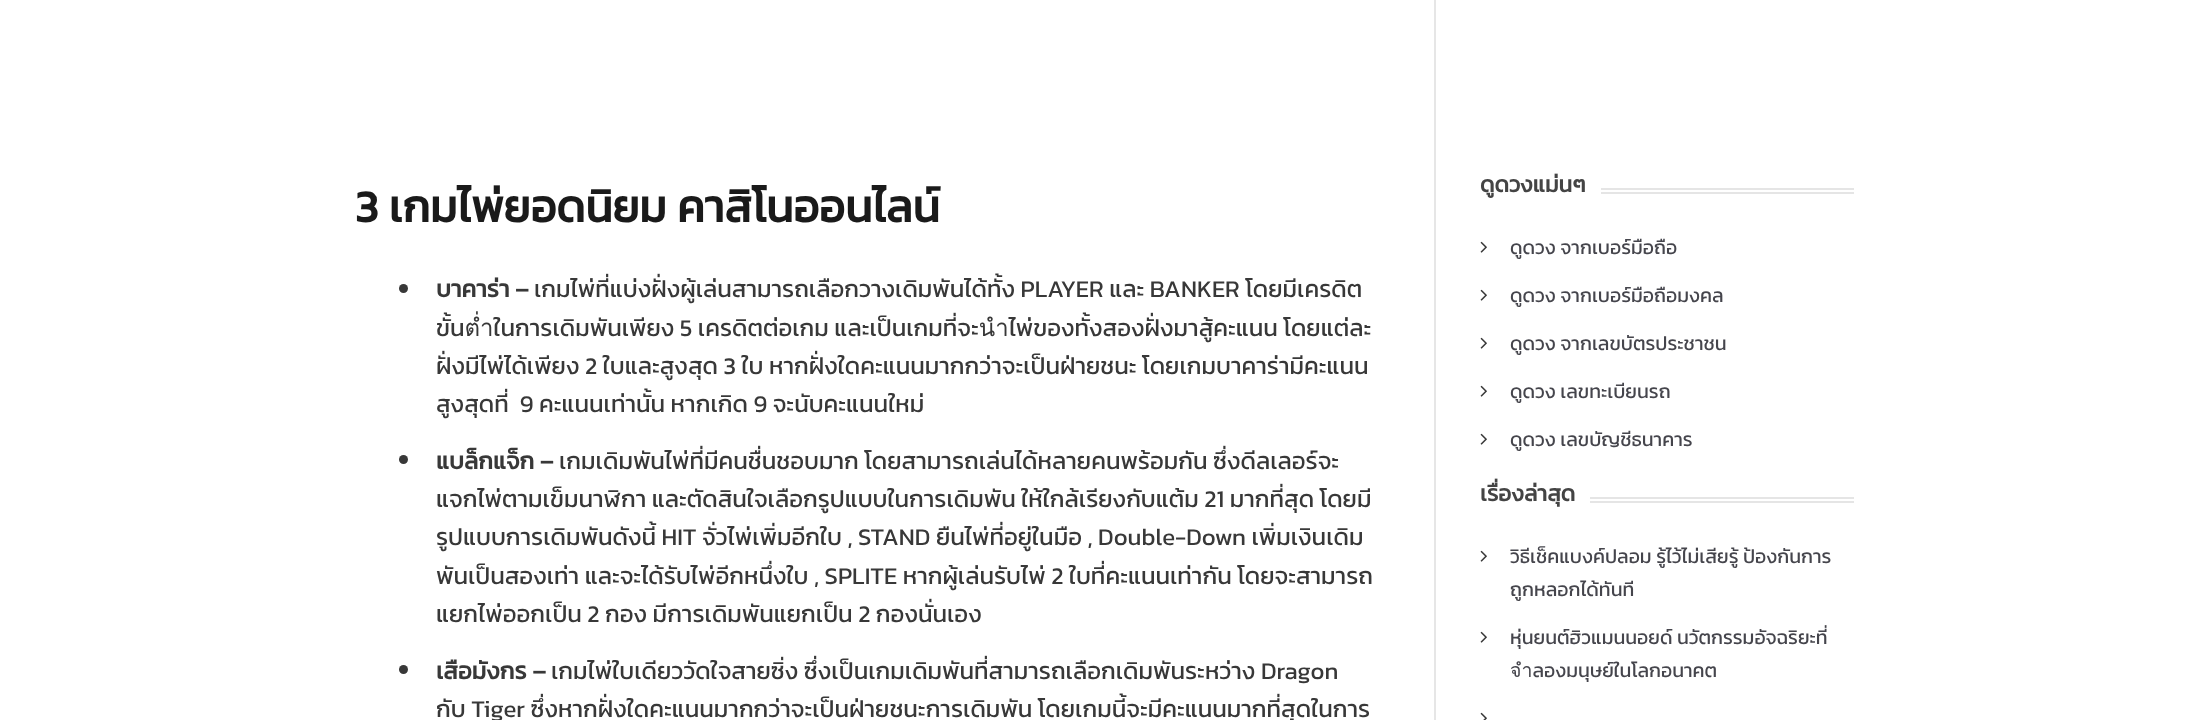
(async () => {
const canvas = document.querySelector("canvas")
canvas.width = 2209
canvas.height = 720
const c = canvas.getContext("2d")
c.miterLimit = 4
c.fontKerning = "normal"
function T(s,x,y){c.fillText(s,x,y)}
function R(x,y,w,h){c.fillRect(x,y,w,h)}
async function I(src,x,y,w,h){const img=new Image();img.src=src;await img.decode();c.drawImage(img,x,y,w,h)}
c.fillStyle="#fff"
R(0,0,2209,720)
c.fillStyle="#e6e6e6"
R(1434,0,2,720)
c.font="bold 45px Kanit"
c.fillStyle="#1a1a1a"
T("3 เกมไพ่ยอดนิยม คาสิโนออนไลน์",355,222)
c.fillStyle="#383838"
c.beginPath()
c.arc(403.5,288.5,4.5,0,7)
c.fill()
c.font="bold 24px Kanit"
T("บาคาร่า –",436,297)
c.font="24px Kanit"
T("เกมไพ่ที่แบ่งฝั่งผู้เล่นสามารถเลือกวางเดิมพันได้ทั้ง PLAYER และ BANKER โดยมีเครดิต",534,297)
T("ขั้นต่ำในการเดิมพันเพียง 5 เครดิตต่อเกม และเป็นเกมที่จะนำไพ่ของทั้งสองฝั่งมาสู้คะแนน โดยแต่ละ",436,336)
T("ฝั่งมีไพ่ได้เพียง 2 ใบและสูงสุด 3 ใบ หากฝั่งใดคะแนนมากกว่าจะเป็นฝ่ายชนะ โดยเกมบาคาร่ามีคะแนน",436,374)
T("สูงสุดที่  9 คะแนนเท่านั้น หากเกิด 9 จะนับคะแนนใหม่",436,412)
c.beginPath()
c.arc(403.5,459.5,4.5,0,7)
c.fill()
c.font="bold 24px Kanit"
T("แบล็กแจ็ก –",436,469)
c.font="24px Kanit"
T("เกมเดิมพันไพ่ที่มีคนชื่นชอบมาก โดยสามารถเล่นได้หลายคนพร้อมกัน ซึ่งดีลเลอร์จะ",559,469)
T("แจกไพ่ตามเข็มนาฬิกา และตัดสินใจเลือกรูปแบบในการเดิมพัน ให้ใกล้เรียงกับแต้ม 21 มากที่สุด โดยมี",436,507)
T("รูปแบบการเดิมพันดังนี้ HIT จั่วไพ่เพิ่มอีกใบ , STAND ยืนไพ่ที่อยู่ในมือ , Double-Down เพิ่มเงินเดิม",436,545)
T("พันเป็นสองเท่า และจะได้รับไพ่อีกหนึ่งใบ , SPLITE หากผู้เล่นรับไพ่ 2 ใบที่คะแนนเท่ากัน โดยจะสามารถ",436,584)
T("แยกไพ่ออกเป็น 2 กอง มีการเดิมพันแยกเป็น 2 กองนั่นเอง",436,622)
c.beginPath()
c.arc(403.5,669.5,4.5,0,7)
c.fill()
c.font="bold 24px Kanit"
T("เสือมังกร –",436,679)
c.font="24px Kanit"
T("เกมไพ่ใบเดียววัดใจสายซิ่ง ซึ่งเป็นเกมเดิมพันที่สามารถเลือกเดิมพันระหว่าง Dragon",551,679)
T("กับ Tiger ซึ่งหากฝั่งใดคะแนนมากกว่าจะเป็นฝ่ายชนะการเดิมพัน โดยเกมนี้จะมีคะแนนมากที่สุดในการ",436,717)
c.fillStyle="#e5e5e5"
R(1601,188,253,2)
R(1601,192,253,2)
c.font="bold 22.5px Kanit"
c.fillStyle="#444"
T("ดูดวงแม่นๆ",1480,192)
await I("1.png",1480,241,7,12)
c.font="19.5px Kanit"
c.fillStyle="#45454c"
T("ดูดวง จากเบอร์มือถือ",1510,254)
await I("1.png",1480,289,7,12)
T("ดูดวง จากเบอร์มือถือมงคล",1510,302)
await I("1.png",1480,337,7,12)
T("ดูดวง จากเลขบัตรประชาชน",1510,350)
await I("1.png",1480,385,7,12)
T("ดูดวง เลขทะเบียนรถ",1510,398)
await I("1.png",1480,433,7,12)
T("ดูดวง เลขบัญชีธนาคาร",1510,446)
c.fillStyle="#e5e5e5"
R(1590,497,264,2)
R(1590,501,264,2)
c.font="bold 22.5px Kanit"
c.fillStyle="#444"
T("เรื่องล่าสุด",1480,501)
await I("1.png",1480,550,7,12)
c.font="19.5px Kanit"
c.fillStyle="#45454c"
T("วิธีเช็คแบงค์ปลอม รู้ไว้ไม่เสียรู้ ป้องกันการ",1510,563)
T("ถูกหลอกได้ทันที",1510,596)
await I("1.png",1480,631,7,12)
T("หุ่นยนต์ฮิวแมนนอยด์ นวัตกรรมอัจฉริยะที่",1510,644)
T("จำลองมนุษย์ในโลกอนาคต",1510,677)
await I("2.png",1480,712,7,8)
})()
